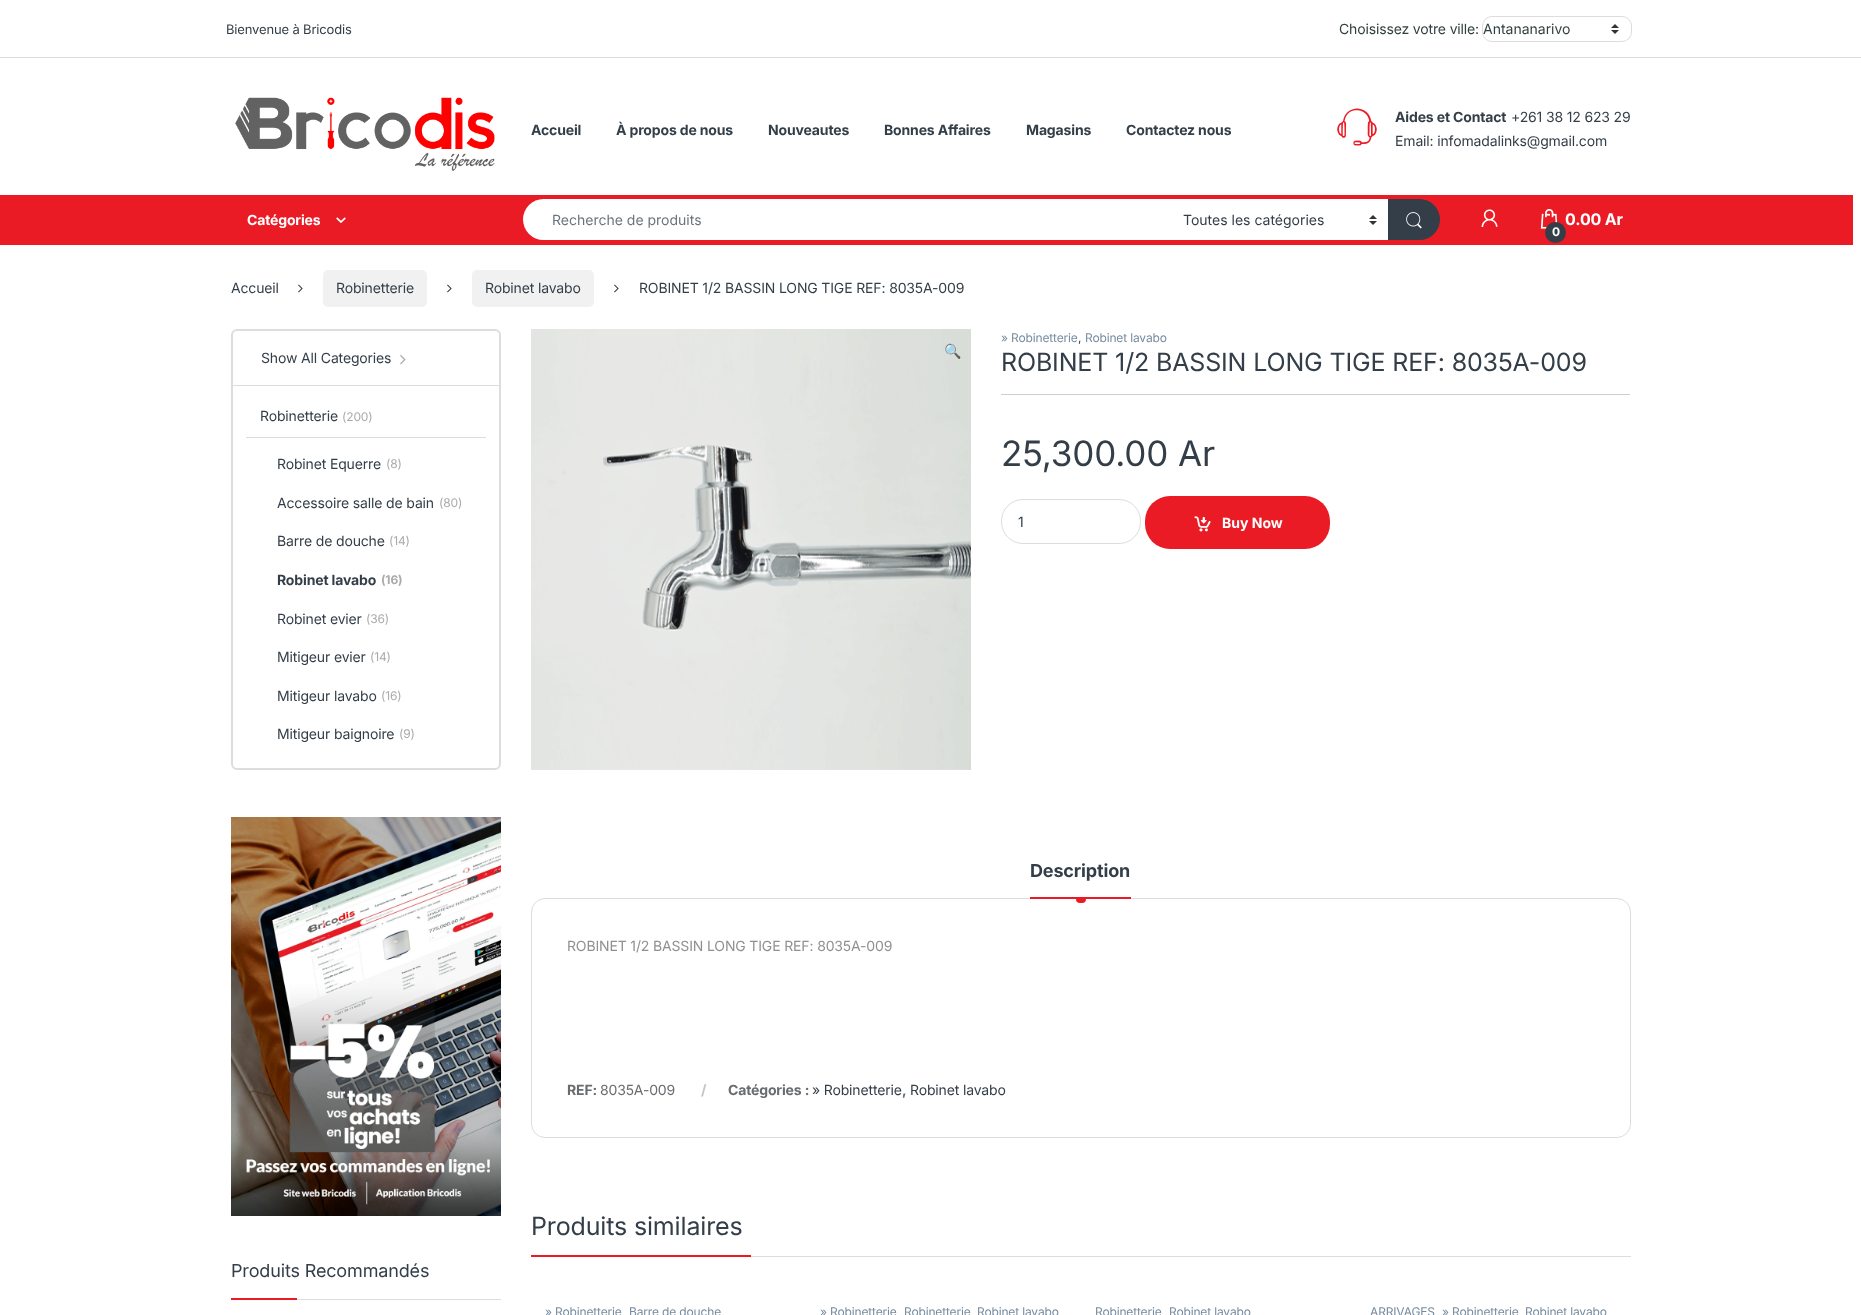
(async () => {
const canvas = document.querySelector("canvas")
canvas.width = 1861
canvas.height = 1315
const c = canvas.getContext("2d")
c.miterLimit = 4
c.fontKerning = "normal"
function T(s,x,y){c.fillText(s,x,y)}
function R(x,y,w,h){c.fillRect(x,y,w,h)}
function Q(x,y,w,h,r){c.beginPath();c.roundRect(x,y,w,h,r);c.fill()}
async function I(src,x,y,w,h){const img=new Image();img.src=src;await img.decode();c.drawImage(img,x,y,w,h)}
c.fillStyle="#fff"
R(0,0,1861,1315)
c.fillStyle="#ddd"
R(0,57,1861,1)
c.letterSpacing="-0.15px"
c.font="13px Inter"
c.fillStyle="#333e48"
T("Bienvenue à Bricodis",226,34)
c.font="14px Inter"
c.fillStyle="#334141"
T("Choisissez votre ville:",1339,34)
await I("1.png",1611,24,8,10)
c.beginPath()
c.roundRect(1482.5,16.5,149,25,9.5)
c.strokeStyle="#ddd"
c.stroke()
c.letterSpacing="0px"
T("Antananarivo",1483,34)
await I("2.png",235,97,260,74)
c.letterSpacing="-0.15px"
c.font="bold 14px Inter"
c.fillStyle="#333e48"
T("Accueil",531,135)
T("À propos de nous",616,135)
T("Nouveautes",768,135)
T("Bonnes Affaires",884,135)
T("Magasins",1026,135)
T("Contactez nous",1126,135)
await I("3.png",1337,108,40,38)
T("Aides et Contact",1395,122)
c.font="14px Inter"
T("+261 38 12 623 29",1511,122)
T("Email: infomadalinks@gmail.com",1395,146)
c.fillStyle="#ea1b25"
R(0,195,1853,50)
c.font="bold 14px Inter"
c.fillStyle="#fff"
T("Catégories",247,225)
await I("4.png",336,217,10,6)
c.beginPath()
c.roundRect(523,199,649,41,[20.5,0,0,20.5])
c.fill()
c.letterSpacing="0px"
c.font="14px Inter"
c.fillStyle="#6c757d"
T("Recherche de produits",552,225)
c.fillStyle="#fff"
R(1172,199,216,41)
await I("1.png",1369,215,8,10)
c.fillStyle="#333e48"
T("Toutes les catégories",1183,225)
c.beginPath()
c.roundRect(1388,199,52,41,[0,20.5,20.5,0])
c.fill()
await I("5.png",1406,212,16,17)
await I("6.png",1481,209,17,18)
await I("7.png",1540,209,18,20)
c.letterSpacing="-0.15px"
c.font="bold 16px Inter"
c.fillStyle="#fff"
T("0.00 Ar",1565,225)
c.fillStyle="#333e48"
c.beginPath()
c.arc(1555.5,232.5,10.5,0,7)
c.fill()
c.font="bold 12px Inter"
c.fillStyle="#fff"
T("0",1552,236)
c.font="14px Inter"
c.fillStyle="#333e48"
T("Accueil",231,293)
await I("8.png",298,284,5,9)
c.fillStyle="#f1f1f1"
Q(323,270,104,37,5)
c.fillStyle="#333e48"
T("Robinetterie",336,293)
await I("8.png",447,284,5,9)
c.fillStyle="#f1f1f1"
Q(472,270,122,37,5)
c.fillStyle="#333e48"
T("Robinet lavabo",485,293)
await I("8.png",614,284,5,9)
T("ROBINET 1/2 BASSIN LONG TIGE REF: 8035A-009",639,293)
c.beginPath()
c.roundRect(232,330,268,439,5)
c.lineWidth=2
c.stroke()
c.fillStyle="#ddd"
R(233,385,266,1)
c.fillStyle="#333e48"
T("Show All Categories",261,363)
await I("9.png",400,355,6,10)
T("Robinetterie",260,421)
c.font="12px Inter"
c.fillStyle="#aaa"
T("(200)",342,421)
c.fillStyle="#ddd"
R(246,437,240,1)
c.font="14px Inter"
c.fillStyle="#333e48"
T("Robinet Equerre",277,469)
c.font="12px Inter"
c.fillStyle="#aaa"
T("(8)",386,468)
c.font="14px Inter"
c.fillStyle="#333e48"
T("Accessoire salle de bain",277,508)
c.font="12px Inter"
c.fillStyle="#aaa"
T("(80)",439,507)
c.font="14px Inter"
c.fillStyle="#333e48"
T("Barre de douche",277,546)
c.font="12px Inter"
c.fillStyle="#aaa"
T("(14)",389,545)
c.font="bold 14px Inter"
c.fillStyle="#333e48"
T("Robinet lavabo",277,585)
c.font="bold 12px Inter"
c.fillStyle="#aaa"
T("(16)",381,584)
c.font="14px Inter"
c.fillStyle="#333e48"
T("Robinet evier",277,624)
c.font="12px Inter"
c.fillStyle="#aaa"
T("(36)",366,623)
c.font="14px Inter"
c.fillStyle="#333e48"
T("Mitigeur evier",277,662)
c.font="12px Inter"
c.fillStyle="#aaa"
T("(14)",370,661)
c.font="14px Inter"
c.fillStyle="#333e48"
T("Mitigeur lavabo",277,701)
c.font="12px Inter"
c.fillStyle="#aaa"
T("(16)",381,700)
c.font="14px Inter"
c.fillStyle="#333e48"
T("Mitigeur baignoire",277,739)
c.font="12px Inter"
c.fillStyle="#aaa"
T("(9)",399,738)
await I("10.png",231,817,270,399)
c.fillStyle="#ddd"
R(297,1299,204,1)
c.font="18px Inter"
c.fillStyle="#333e48"
T("Produits Recommandés",231,1277)
c.fillStyle="#ea1b25"
R(231,1298,66,2)
await I("11.png",531,329,440,441)
c.font="14px Noto Color Emoji"
c.fillStyle="#333e48"
T("🔍",944,356)
c.font="12px Inter"
c.fillStyle="#768b9e"
T("» Robinetterie",1001,342)
c.fillStyle="#333e48"
T(",",1078,342)
c.fillStyle="#768b9e"
T("Robinet lavabo",1085,342)
c.font="25px Inter"
c.fillStyle="#333e48"
T("ROBINET 1/2 BASSIN LONG TIGE REF: 8035A-009",1001,371)
c.fillStyle="#cccfd1"
R(1001,394,629,1)
c.font="35px Inter"
c.fillStyle="#333e48"
T("25,300.00 Ar",1001,466)
c.beginPath()
c.roundRect(1001.5,499.5,139,44,21.5)
c.lineWidth=1
c.stroke()
c.letterSpacing="0px"
c.font="14px Inter"
T("1",1018,527)
c.fillStyle="#ea1b25"
Q(1145,496,185,53,25)
await I("12.png",1194,516,17,16)
c.font="bold 14px Inter"
c.fillStyle="#fff"
T("Buy Now",1222,528)
c.letterSpacing="-0.15px"
c.font="bold 18px Inter"
c.fillStyle="#333e48"
T("Description",1030,877)
c.beginPath()
c.roundRect(531.5,898.5,1099,239,13.5)
c.stroke()
c.fillStyle="#ea1b25"
R(1030,897,101,2)
c.beginPath()
c.roundRect(1076,899,10,4,[0,0,4,4])
c.fill()
c.font="14px Inter"
c.fillStyle="#919090"
T("ROBINET 1/2 BASSIN LONG TIGE REF: 8035A-009",567,951)
c.font="bold 14px Inter"
c.fillStyle="#686c6f"
T("REF:",567,1095)
c.font="14px Inter"
T("8035A-009",600,1095)
c.font="bold 14px Inter"
c.fillStyle="#c5c5c5"
T("/",701,1095)
c.fillStyle="#686c6f"
T("Catégories :",728,1095)
c.font="14px Inter"
c.fillStyle="#333e48"
T("» Robinetterie",812,1095)
c.font="bold 14px Inter"
c.fillStyle="#686c6f"
T(",",902,1095)
c.font="14px Inter"
c.fillStyle="#333e48"
T("Robinet lavabo",910,1095)
c.fillStyle="#ddd"
R(751,1256,880,1)
c.font="25px Inter"
c.fillStyle="#333e48"
T("Produits similaires",531,1235)
c.fillStyle="#ea1b25"
R(531,1255,220,2)
c.font="12px Inter"
c.fillStyle="#768b9e"
T("» Robinetterie",545,1316)
T("Barre de douche",629,1316)
T("» Robinetterie",820,1316)
T("Robinetterie",904,1316)
T("Robinet lavabo",977,1316)
T("Robinetterie",1095,1316)
T("Robinet lavabo",1169,1316)
T("ARRIVAGES",1370,1316)
T("» Robinetterie",1442,1316)
T("Robinet lavabo",1525,1316)
})()
